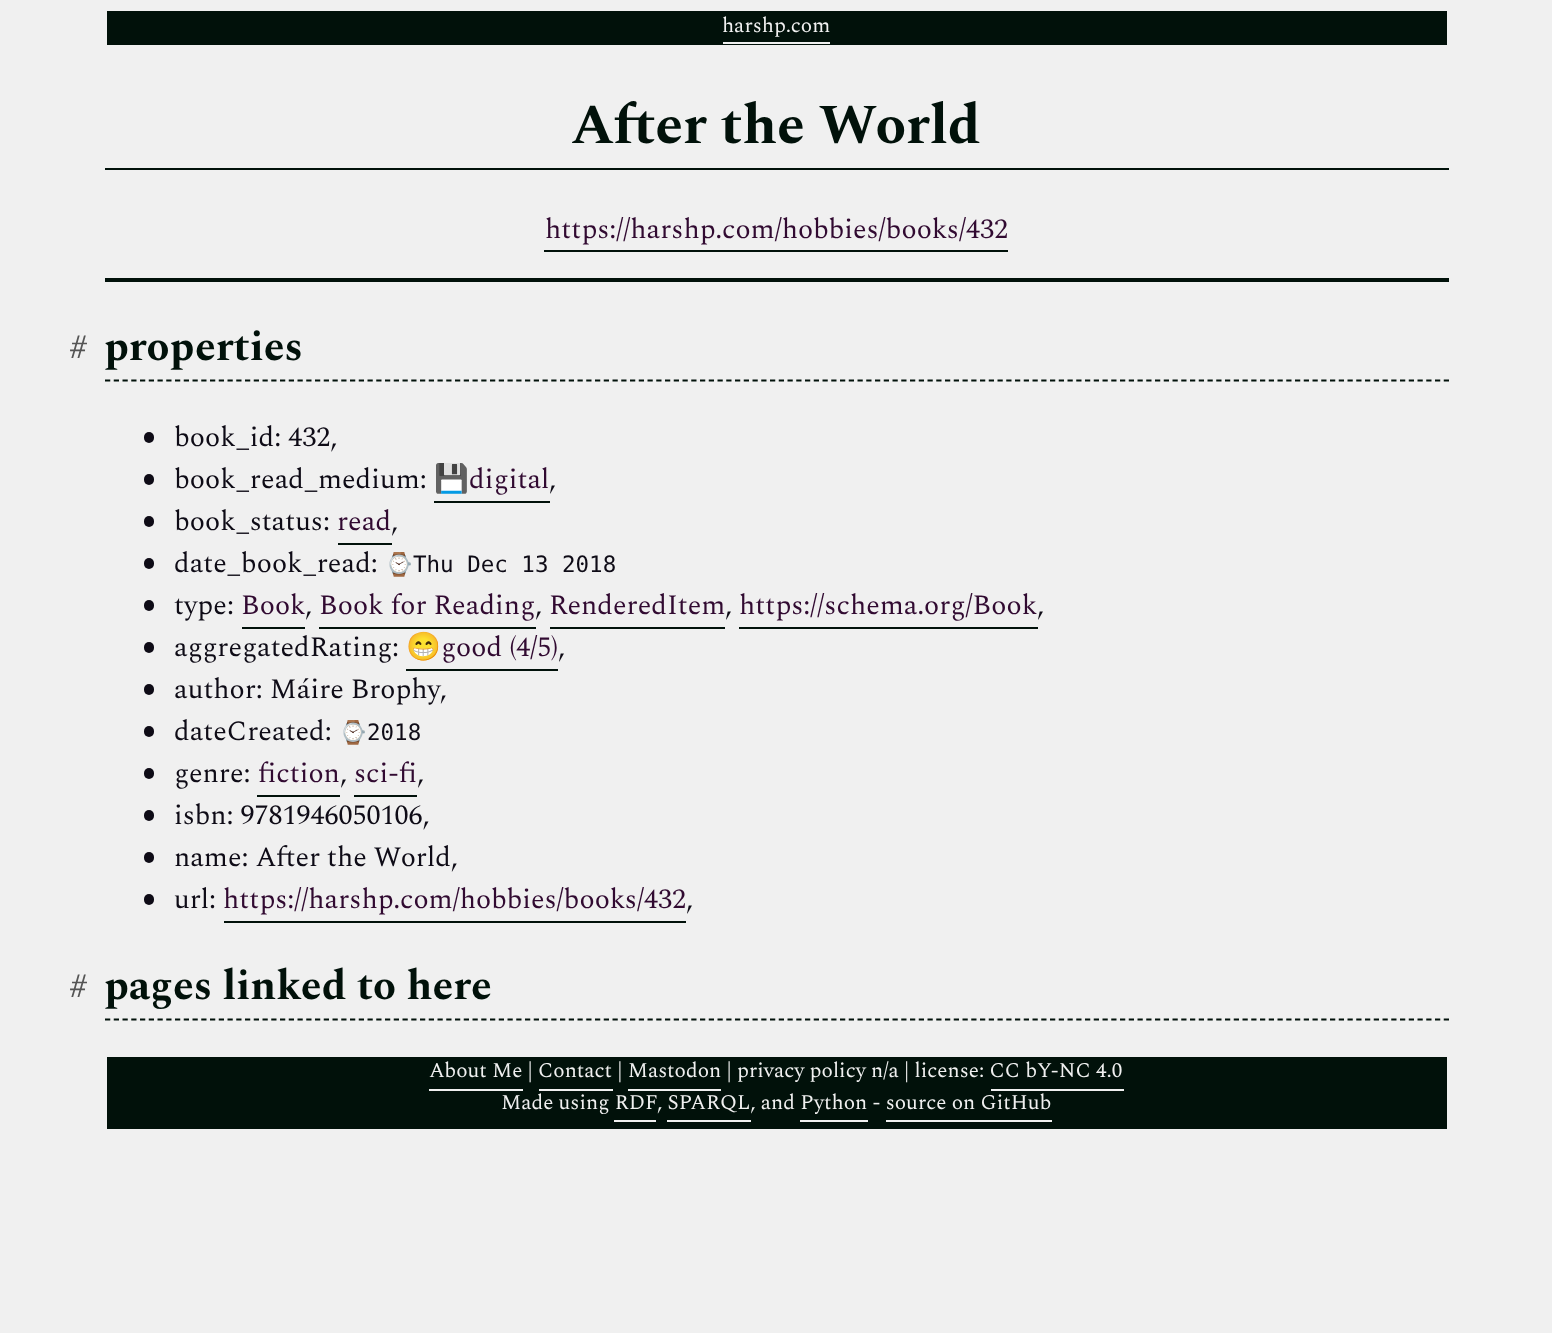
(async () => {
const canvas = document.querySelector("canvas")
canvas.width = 1552
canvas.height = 1333
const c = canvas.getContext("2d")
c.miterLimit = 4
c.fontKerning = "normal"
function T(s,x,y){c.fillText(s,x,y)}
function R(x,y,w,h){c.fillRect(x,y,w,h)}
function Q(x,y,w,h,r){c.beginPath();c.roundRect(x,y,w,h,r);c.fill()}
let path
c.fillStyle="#f0f0f0"
R(0,0,1552,1333)
c.fillStyle="#01110a"
R(107,11,1340,34)
c.font="21px Spectral"
c.fillStyle="#f0f0f0"
T("harshp.com",722,32)
R(723,42,107,2)
c.fillStyle="#01110a"
R(105,168,1344,2)
c.font="bold 56px Spectral"
T("After the World",571,143)
R(105,278,1344,4)
c.font="28px Spectral"
c.fillStyle="#310a31"
T("https://harshp.com/hobbies/books/432",545,238)
c.fillStyle="#01110a"
R(544,250,464,2)
path = new Path2D("M105 380.5h1344")
c.strokeStyle="#01110a"
c.lineWidth=1.8
c.setLineDash([5.25,3.5])
c.stroke(path)
c.font="bold 34px Spectral"
c.fillStyle="#555"
T("#",69,358)
c.font="bold 42px Spectral"
c.fillStyle="#01110a"
T("properties",104,360)
c.fillStyle="#0e0b16"
Q(144,432,10,11,5)
c.font="28px Spectral"
T("book_id: 432,",174,446)
Q(144,474,10,11,5)
T("book_read_medium:",174,488)
c.font="28px Noto Color Emoji"
c.fillStyle="#310a31"
T("💾",434,488)
c.font="28px Spectral"
T("digital",469,488)
c.fillStyle="#01110a"
R(434,501,116,2)
c.fillStyle="#0e0b16"
T(",",549,488)
Q(144,516,10,11,5)
T("book_status:",174,530)
c.fillStyle="#310a31"
T("read",337,530)
c.fillStyle="#01110a"
R(338,543,54,2)
c.fillStyle="#0e0b16"
T(",",391,530)
Q(144,558,10,11,5)
T("date_book_read:",174,572)
c.font="22.5px Noto Color Emoji"
T("⌚",385,572)
c.font="22.5px DejaVu Sans Mono"
T("Thu Dec 13 2018",413,572)
Q(144,600,10,11,5)
c.font="28px Spectral"
T("type:",174,614)
c.fillStyle="#310a31"
T("Book",241,614)
c.fillStyle="#01110a"
R(242,627,63,2)
c.fillStyle="#310a31"
T("Book for Reading",319,614)
c.fillStyle="#01110a"
R(319,627,217,2)
c.fillStyle="#310a31"
T("RenderedItem",549,614)
c.fillStyle="#01110a"
R(550,627,175,2)
c.fillStyle="#310a31"
T("https://schema.org/Book",739,614)
c.fillStyle="#01110a"
R(739,627,299,2)
c.fillStyle="#0e0b16"
T(",",305,614)
T(",",535,614)
T(",",725,614)
T(",",1037,614)
Q(144,642,10,11,5)
T("aggregatedRating:",174,656)
c.font="28px Noto Color Emoji"
c.fillStyle="#310a31"
T("😁",406,656)
c.font="28px Spectral"
T("good (4/5)",441,656)
c.fillStyle="#01110a"
R(406,669,152,2)
c.fillStyle="#0e0b16"
T(",",558,656)
Q(144,684,10,11,5)
T("author: Máire Brophy,",174,698)
Q(144,726,10,11,5)
T("dateCreated:",174,740)
c.font="22.5px Noto Color Emoji"
T("⌚",339,740)
c.font="22.5px DejaVu Sans Mono"
T("2018",367,740)
Q(144,768,10,11,5)
c.font="28px Spectral"
T("genre:",174,782)
c.fillStyle="#310a31"
T("fiction",258,782)
c.fillStyle="#01110a"
R(257,795,83,2)
c.fillStyle="#0e0b16"
T(",",340,782)
c.fillStyle="#310a31"
T("sci-fi",354,782)
c.fillStyle="#01110a"
R(354,795,63,2)
c.fillStyle="#0e0b16"
T(",",417,782)
Q(144,810,10,11,5)
T("isbn: 9781946050106,",174,824)
Q(144,852,10,11,5)
T("name: After the World,",174,866)
Q(144,894,10,11,5)
T("url:",174,908)
c.fillStyle="#310a31"
T("https://harshp.com/hobbies/books/432",223,908)
c.fillStyle="#01110a"
R(224,921,462,2)
c.fillStyle="#0e0b16"
T(",",686,908)
path = new Path2D("M105 1019.5h1344")
c.stroke(path)
c.font="bold 34px Spectral"
c.fillStyle="#555"
T("#",69,997)
c.font="bold 42px Spectral"
c.fillStyle="#01110a"
T("pages linked to here",104,999)
R(107,1057,1340,72)
c.font="21px Spectral"
c.fillStyle="#f0f0f0"
T("About Me | Contact | Mastodon | privacy policy n/a | license: CC bY-NC 4.0",429,1077)
R(429,1089,94,2)
R(539,1089,74,2)
R(628,1089,93,2)
R(991,1089,133,2)
T("Made using RDF",501,1109)
T(", SPARQL, and Python - source on GitHub",657,1109)
R(614,1120,42,2)
R(667,1120,84,2)
R(800,1120,68,2)
R(886,1120,166,2)
})()
